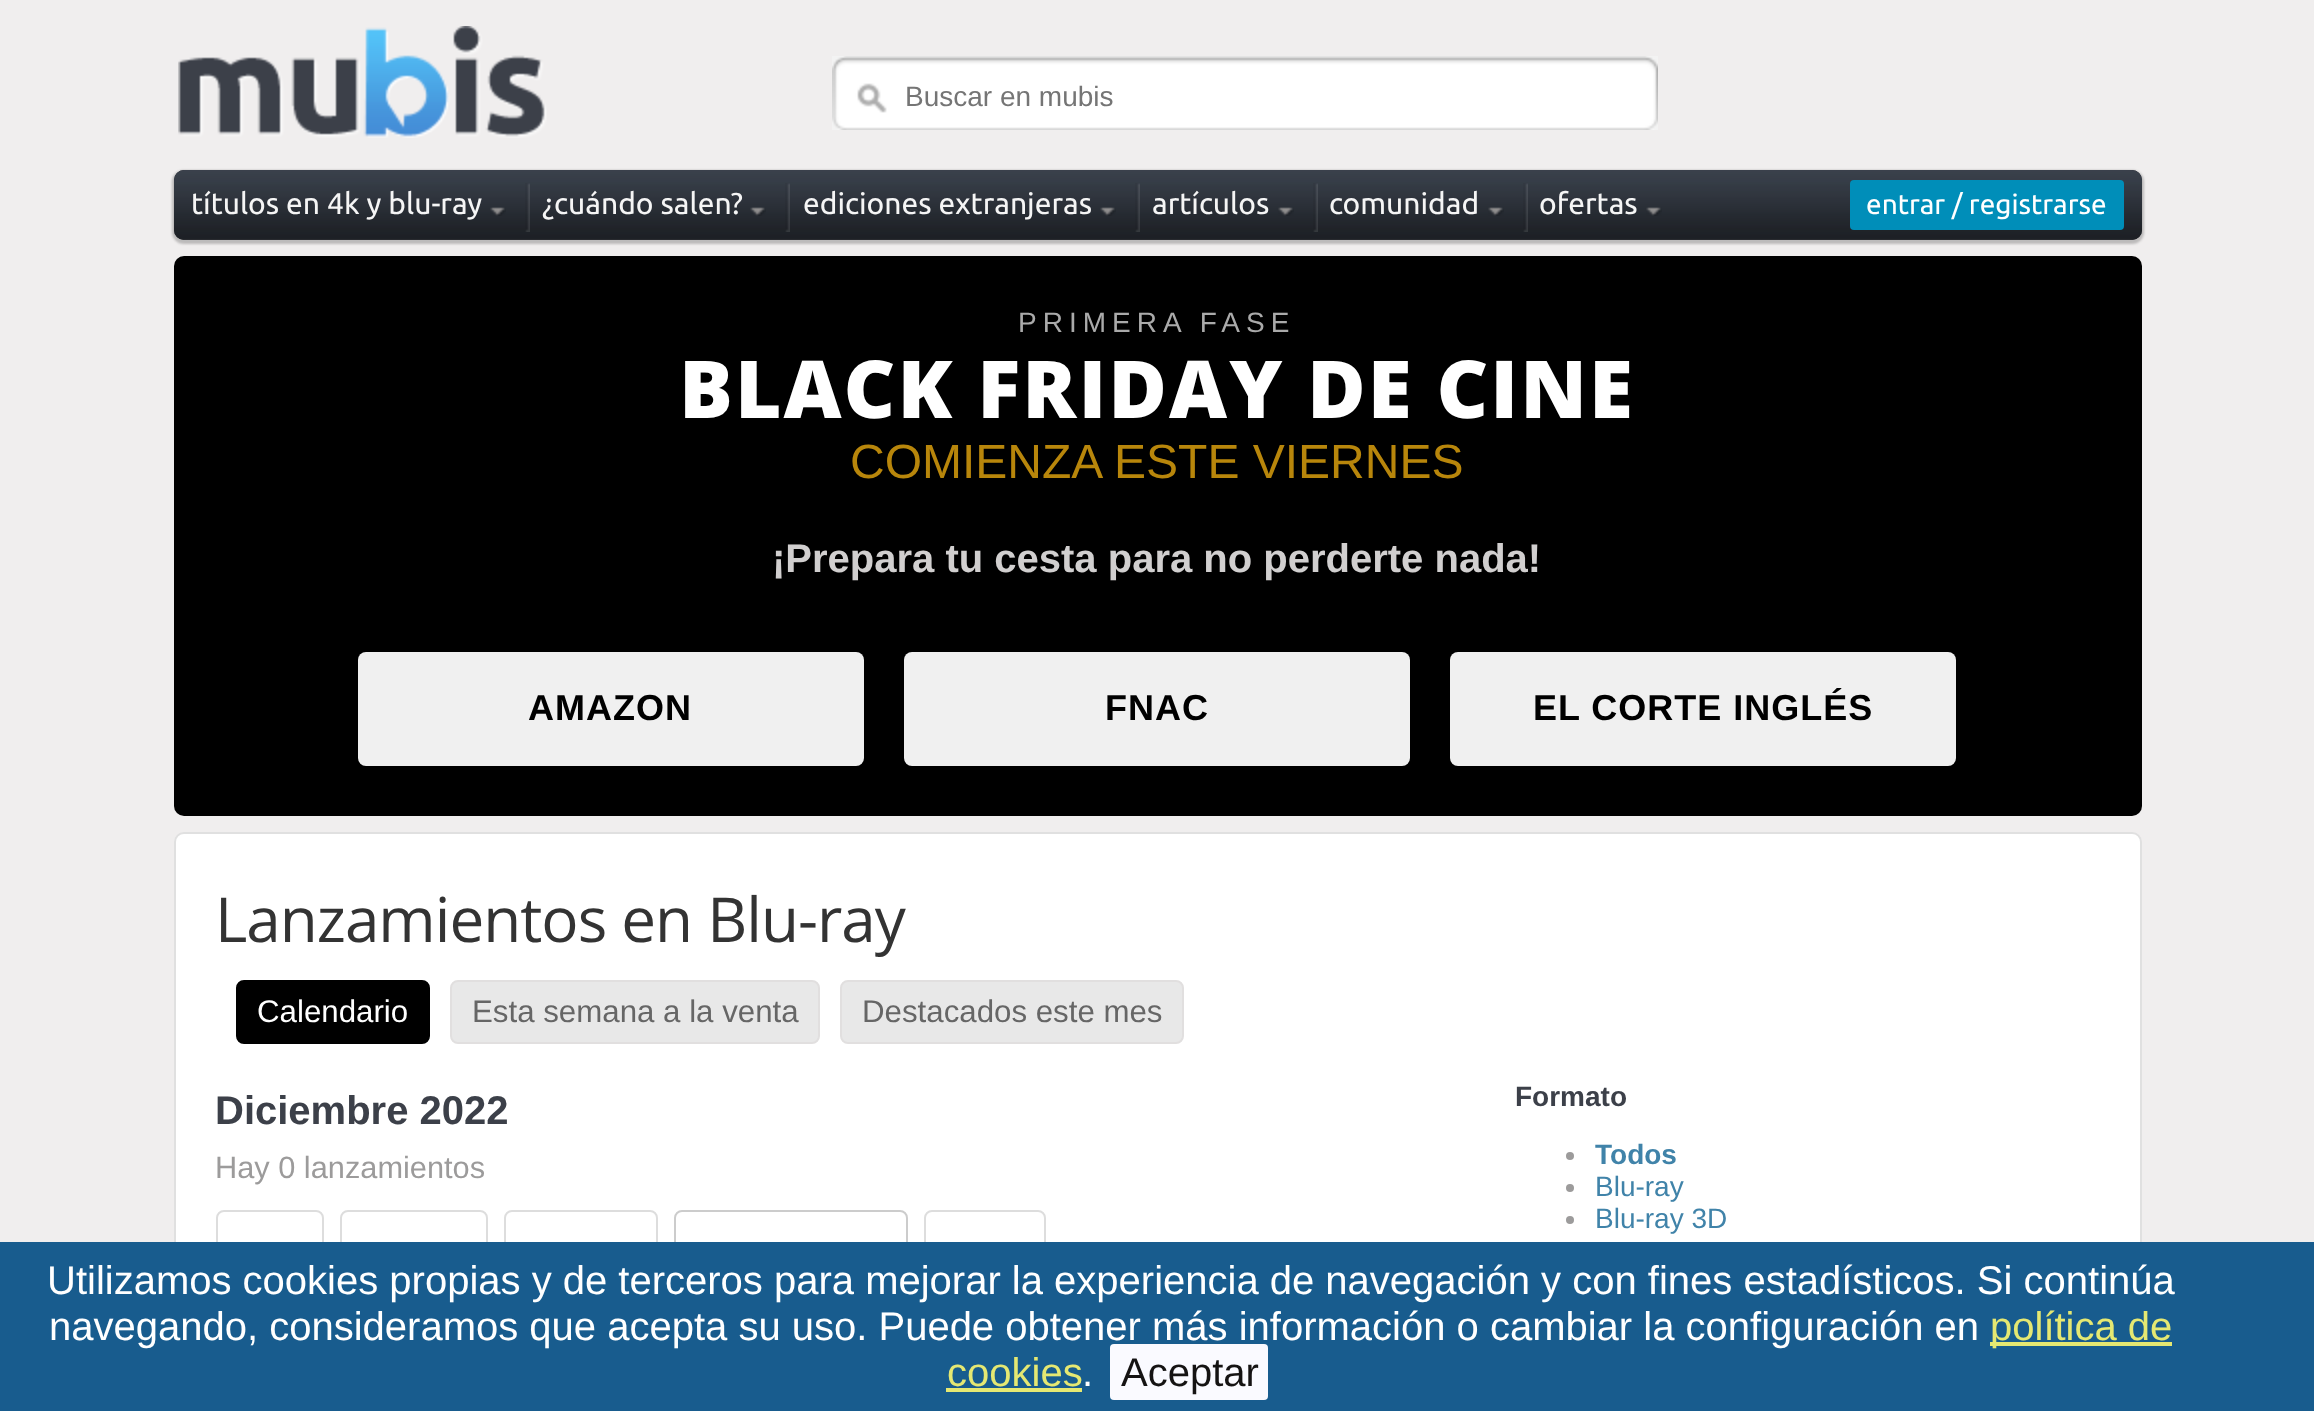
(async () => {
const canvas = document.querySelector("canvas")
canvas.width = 2314
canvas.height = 1411
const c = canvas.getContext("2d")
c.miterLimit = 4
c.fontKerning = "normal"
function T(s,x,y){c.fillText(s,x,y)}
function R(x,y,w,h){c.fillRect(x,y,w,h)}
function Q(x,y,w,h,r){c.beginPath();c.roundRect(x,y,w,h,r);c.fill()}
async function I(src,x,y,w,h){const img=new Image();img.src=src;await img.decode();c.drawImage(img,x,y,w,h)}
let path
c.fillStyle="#f0eeee"
R(0,0,2314,1411)
await I("1.png",178,26,369,112)
await I("2.png",832,56,826,74)
c.font="28px Liberation Sans"
c.fillStyle="#757575"
T("Buscar en mubis",905,106)
c.fillStyle="#4444444d"
c.filter="blur(1px)"
c.beginPath()
c.roundRect(172,170,1972,74,12)
c.fill()
c.filter="none"
c.fillStyle="#21242b"
Q(174,170,1968,70,10)
await I("3.png",174,170,1968,70)
await I("4.png",490,207,16,9)
c.font="30px Ubuntu"
c.fillStyle="#f5f5f5"
T("títulos en 4k y blu-ray",191,214)
await I("5.png",525,183,5,49)
await I("4.png",750,207,16,9)
T("¿cuándo salen?",542,214)
await I("5.png",785,183,5,49)
await I("4.png",1100,207,16,9)
T("ediciones extranjeras",803,214)
await I("5.png",1135,183,5,49)
await I("4.png",1278,207,16,9)
T("artículos",1152,214)
await I("5.png",1313,183,5,49)
await I("4.png",1488,207,16,9)
T("comunidad",1329,214)
await I("5.png",1523,183,5,49)
await I("4.png",1646,207,16,9)
T("ofertas",1539,214)
c.fillStyle="#008eb9"
Q(1850,180,274,50,4)
c.font="28px Ubuntu"
c.fillStyle="#fff"
T("entrar / registrarse",1866,214)
c.fillStyle="#000"
Q(174,256,1968,560,10)
c.letterSpacing="6px"
c.font="28px Liberation Sans"
c.fillStyle="#aaa"
T("PRIMERA FASE",1018,332)
c.letterSpacing="2px"
c.font="800 80px Open Sans"
c.fillStyle="#fff"
T("BLACK FRIDAY DE CINE",679,418)
c.letterSpacing="0px"
c.font="48px Liberation Sans"
c.fillStyle="#b8860b"
T("COMIENZA ESTE VIERNES",850,478)
c.font="bold 40px Liberation Sans"
c.fillStyle="#d1cfcf"
T("¡Prepara tu cesta para no perderte nada!",772,572)
c.fillStyle="#f0f0f0"
Q(358,652,506,114,8)
c.letterSpacing="1px"
c.font="bold 36px Liberation Sans"
c.fillStyle="#000"
T("AMAZON",528,720)
c.fillStyle="#f0f0f0"
Q(904,652,506,114,8)
c.fillStyle="#000"
T("FNAC",1105,720)
c.fillStyle="#f0f0f0"
Q(1450,652,506,114,8)
c.fillStyle="#000"
T("EL CORTE INGLÉS",1533,720)
c.fillStyle="#fff"
path = new Path2D("M184 833h1948c5 0 9 4 9 9v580h-1966v-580c0-5 4-9 9-9z")
c.fill(path)
c.strokeStyle="#e0e0e0"
c.lineWidth=2
c.stroke(path)
c.letterSpacing="-1px"
c.font="62px Open Sans"
c.fillStyle="#333"
T("Lanzamientos en Blu-ray",215,942)
c.fillStyle="#000"
c.beginPath()
c.roundRect(237,981,192,62,7)
c.fill()
c.strokeStyle="#000"
c.stroke()
c.letterSpacing="0px"
c.font="31.25px Liberation Sans"
c.fillStyle="#fff"
T("Calendario",257,1022)
c.fillStyle="#e8e8e8"
c.beginPath()
c.roundRect(451,981,368,62,7)
c.fill()
c.strokeStyle="#e1dfdf"
c.stroke()
c.fillStyle="#666"
T("Esta semana a la venta",472,1022)
c.fillStyle="#e8e8e8"
c.beginPath()
c.roundRect(841,981,342,62,7)
c.fill()
c.stroke()
c.fillStyle="#666"
T("Destacados este mes",862,1022)
c.font="bold 40px Liberation Sans"
c.fillStyle="#3c4049"
T("Diciembre 2022",215,1124)
c.font="30.75px Liberation Sans"
c.fillStyle="#9c9b9b"
T("Hay 0 lanzamientos",215,1178)
c.beginPath()
c.roundRect(217,1211,106,60,7)
c.strokeStyle="#ddd"
c.stroke()
c.beginPath()
c.roundRect(341,1211,146,60,7)
c.stroke()
c.beginPath()
c.roundRect(505,1211,152,60,7)
c.stroke()
c.beginPath()
c.roundRect(675,1211,232,60,7)
c.strokeStyle="#ccc"
c.stroke()
c.beginPath()
c.roundRect(925,1211,120,60,7)
c.strokeStyle="#ddd"
c.stroke()
c.font="bold 28px Liberation Sans"
c.fillStyle="#3c4049"
T("Formato",1515,1106)
c.fillStyle="#9c9b9b"
c.beginPath()
c.arc(1570,1156,4,0,7)
c.fill()
c.fillStyle="#4083a9"
T("Todos",1595,1164)
c.fillStyle="#9c9b9b"
c.beginPath()
c.arc(1570,1188,4,0,7)
c.fill()
c.font="28px Liberation Sans"
c.fillStyle="#4083a9"
T("Blu-ray",1595,1196)
c.fillStyle="#9c9b9b"
c.beginPath()
c.arc(1570,1220,4,0,7)
c.fill()
c.fillStyle="#4083a9"
T("Blu-ray 3D",1595,1228)
c.fillStyle="#185c8e"
R(0,1242,2314,169)
c.font="40px Liberation Sans"
c.fillStyle="#fff"
T("Utilizamos cookies propias y de terceros para mejorar la experiencia de navegación y con fines estadísticos. Si continúa",47,1294)
T("navegando, consideramos que acepta su uso. Puede obtener más información o cambiar la configuración en",49,1340)
c.fillStyle="#e5e872"
R(1990,1342,182,4)
T("política de",1990,1340)
T("cookies",947,1386)
R(946,1388,136,4)
c.fillStyle="#fff"
T(".",1082,1386)
c.fillStyle="#fafaff"
Q(1110,1344,158,56,4)
c.fillStyle="#151313"
T("Aceptar",1121,1386)
})()
